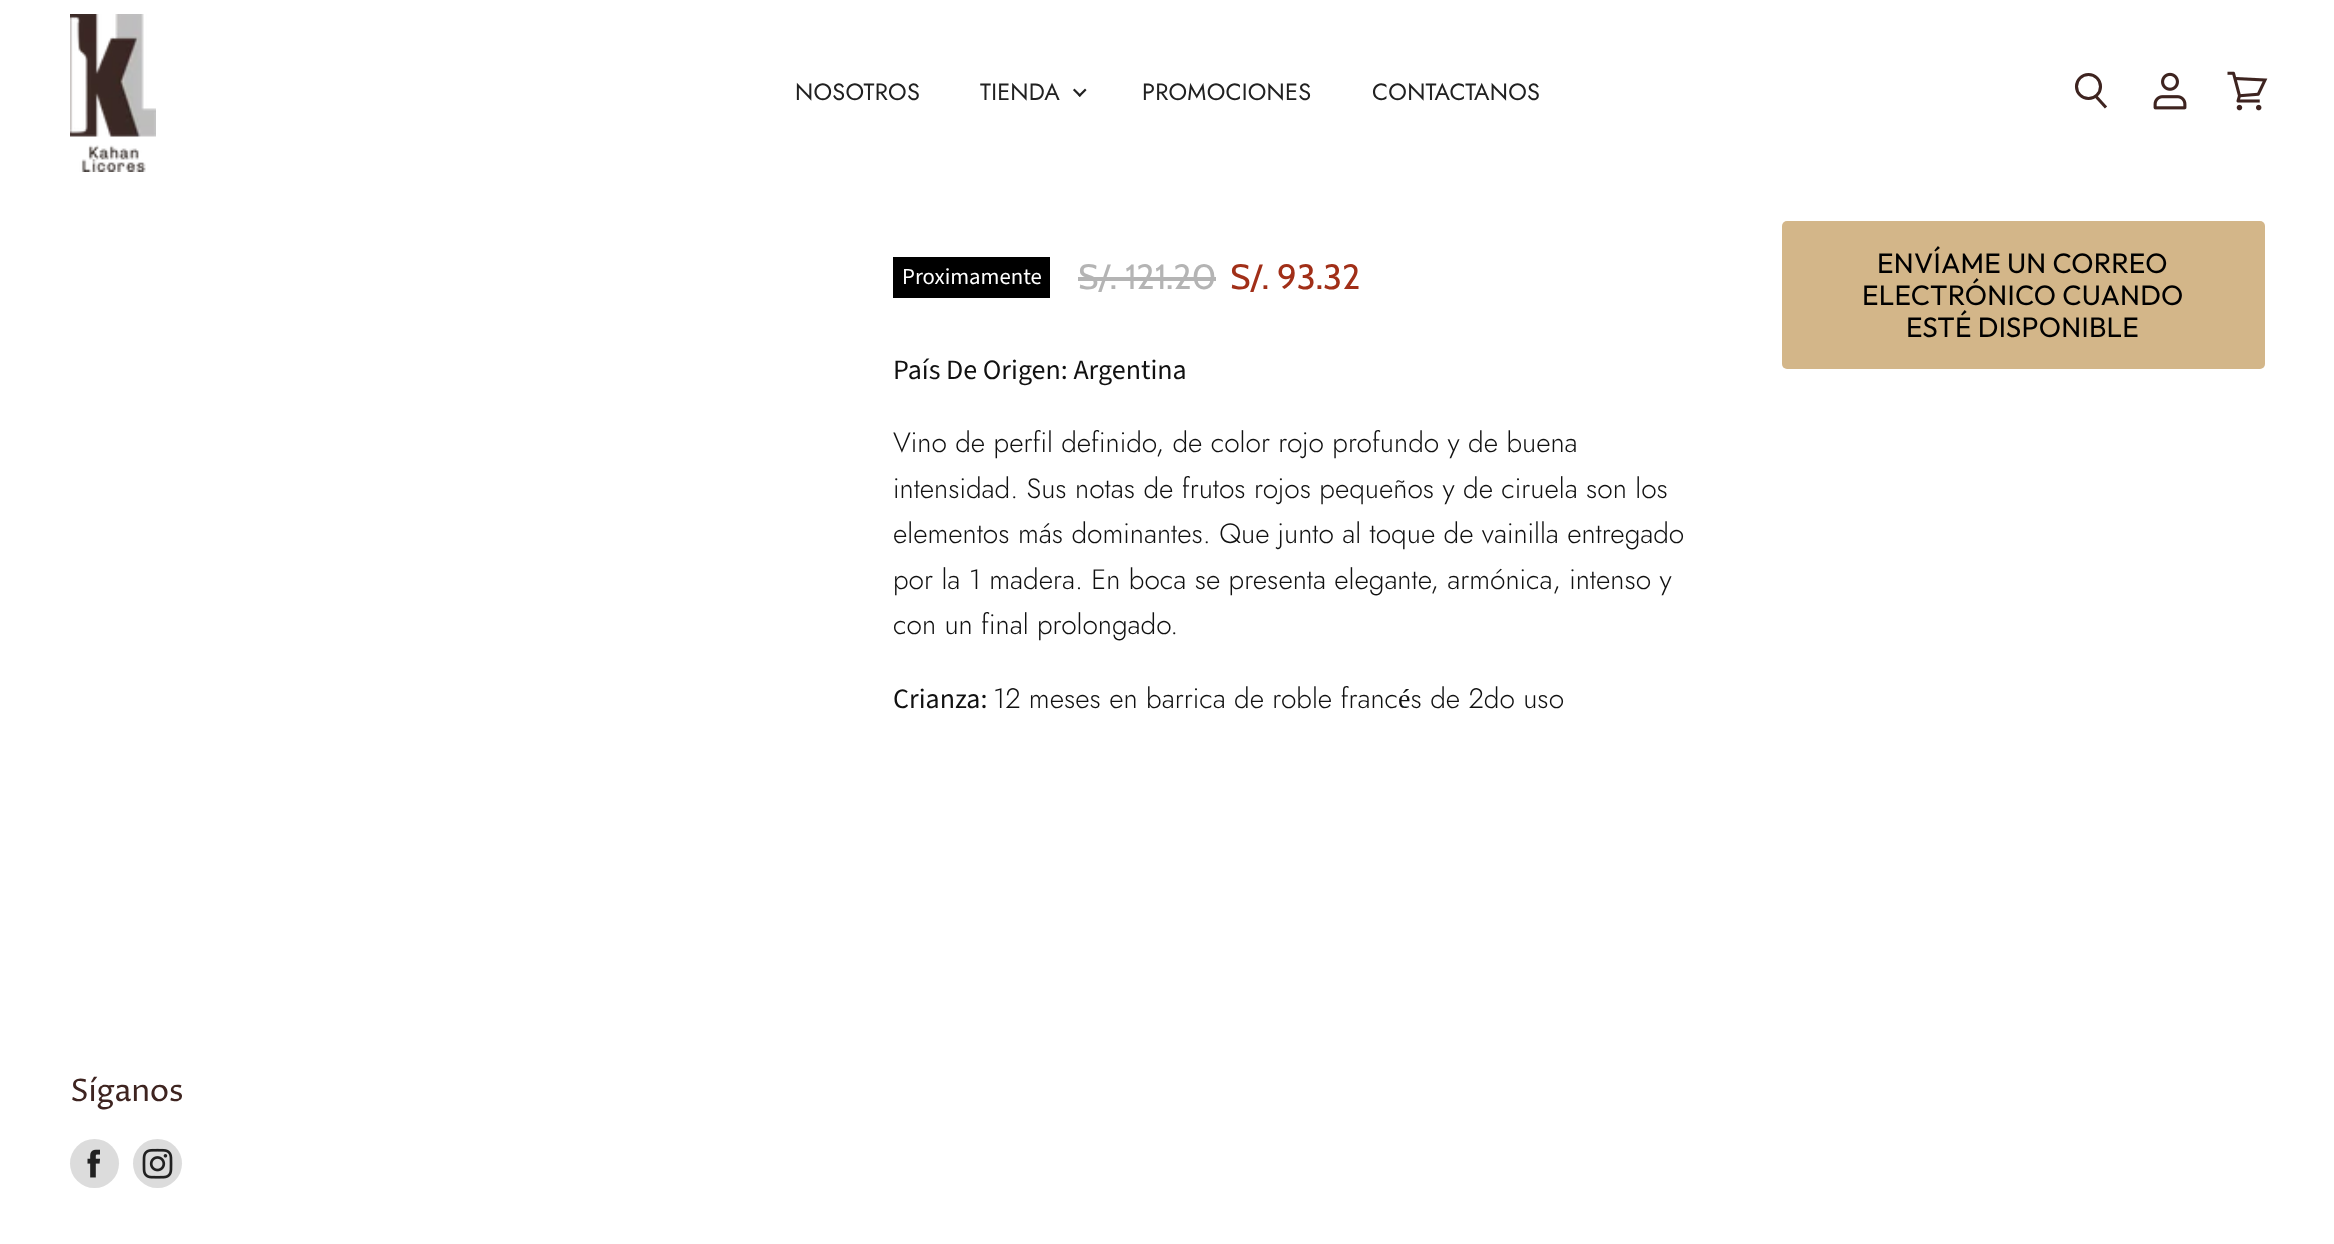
(async () => {
const canvas = document.querySelector("canvas")
canvas.width = 2334
canvas.height = 1244
const c = canvas.getContext("2d")
c.miterLimit = 4
c.fontKerning = "normal"
function T(s,x,y){c.fillText(s,x,y)}
function R(x,y,w,h){c.fillRect(x,y,w,h)}
function Q(x,y,w,h,r){c.beginPath();c.roundRect(x,y,w,h,r);c.fill()}
async function I(src,x,y,w,h){const img=new Image();img.src=src;await img.decode();c.drawImage(img,x,y,w,h)}
let path
c.fillStyle="#fff"
R(0,0,2334,1244)
await I("1.png",70,14,86,158)
c.letterSpacing="0.25px"
c.font="23.5px Jost"
c.fillStyle="#212121"
T("NOSOTROS",795,100)
T("TIENDA",980,100)
await I("2.png",1073,88,14,9)
T("PROMOCIONES",1142,100)
T("CONTACTANOS",1372,100)
path = new Path2D("M2106 107.5l-10-11")
c.strokeStyle="#3e2420"
c.lineWidth=3.1
c.stroke(path)
c.beginPath()
c.arc(2088.5,86.5,12,0,7)
c.stroke()
await I("3.png",2153,72,34,38)
await I("4.png",2227,71,41,40)
c.fillStyle="#000"
R(893,257,157,41)
c.letterSpacing="0px"
c.font="22.75px Source Sans Pro"
c.fillStyle="#fff"
T("Proximamente",902,284)
c.font="35px Cabin"
c.fillStyle="#b4b4b4"
T("S/. 121.20",1078,289)
R(1078,277,138,4)
c.fillStyle="#a12f18"
T("S/. 93.32",1230,289)
c.font="28px Source Sans Pro"
c.fillStyle="#111"
T("País De Origen: Argentina",893,379)
c.font="300 28px Jost"
T("Vino de perfil definido, de color rojo profundo y de buena",893,452)
T("intensidad. Sus notas de frutos rojos pequeños y de ciruela son los",893,498)
T("elementos más dominantes. Que junto al toque de vainilla entregado",893,543)
T("por la 1 madera. En boca se presenta elegante, armónica, intenso y",893,589)
T("con un final prolongado.",893,634)
c.font="28px Source Sans Pro"
T("Crianza:",893,708)
c.font="300 28px Jost"
T("12 meses en barrica de roble francés de 2do uso",993,708)
c.fillStyle="#d3b689"
Q(1782,221,483,148,5)
c.letterSpacing="0.25px"
c.font="28px Outfit"
c.fillStyle="#000"
T("ENVÍAME UN CORREO",1877,273)
T("ELECTRÓNICO CUANDO",1862,305)
T("ESTÉ DISPONIBLE",1906,337)
c.letterSpacing="-0.5px"
c.font="31px Proza Libre"
c.fillStyle="#3e2420"
T("Síganos",70,1101)
c.fillStyle="#dcdcdc"
c.beginPath()
c.arc(94.5,1163.5,24.5,0,7)
c.fill()
await I("5.png",87,1149,13,29)
c.beginPath()
c.arc(157.5,1163.5,24.5,0,7)
c.fill()
await I("6.png",142,1148,31,31)
})()
